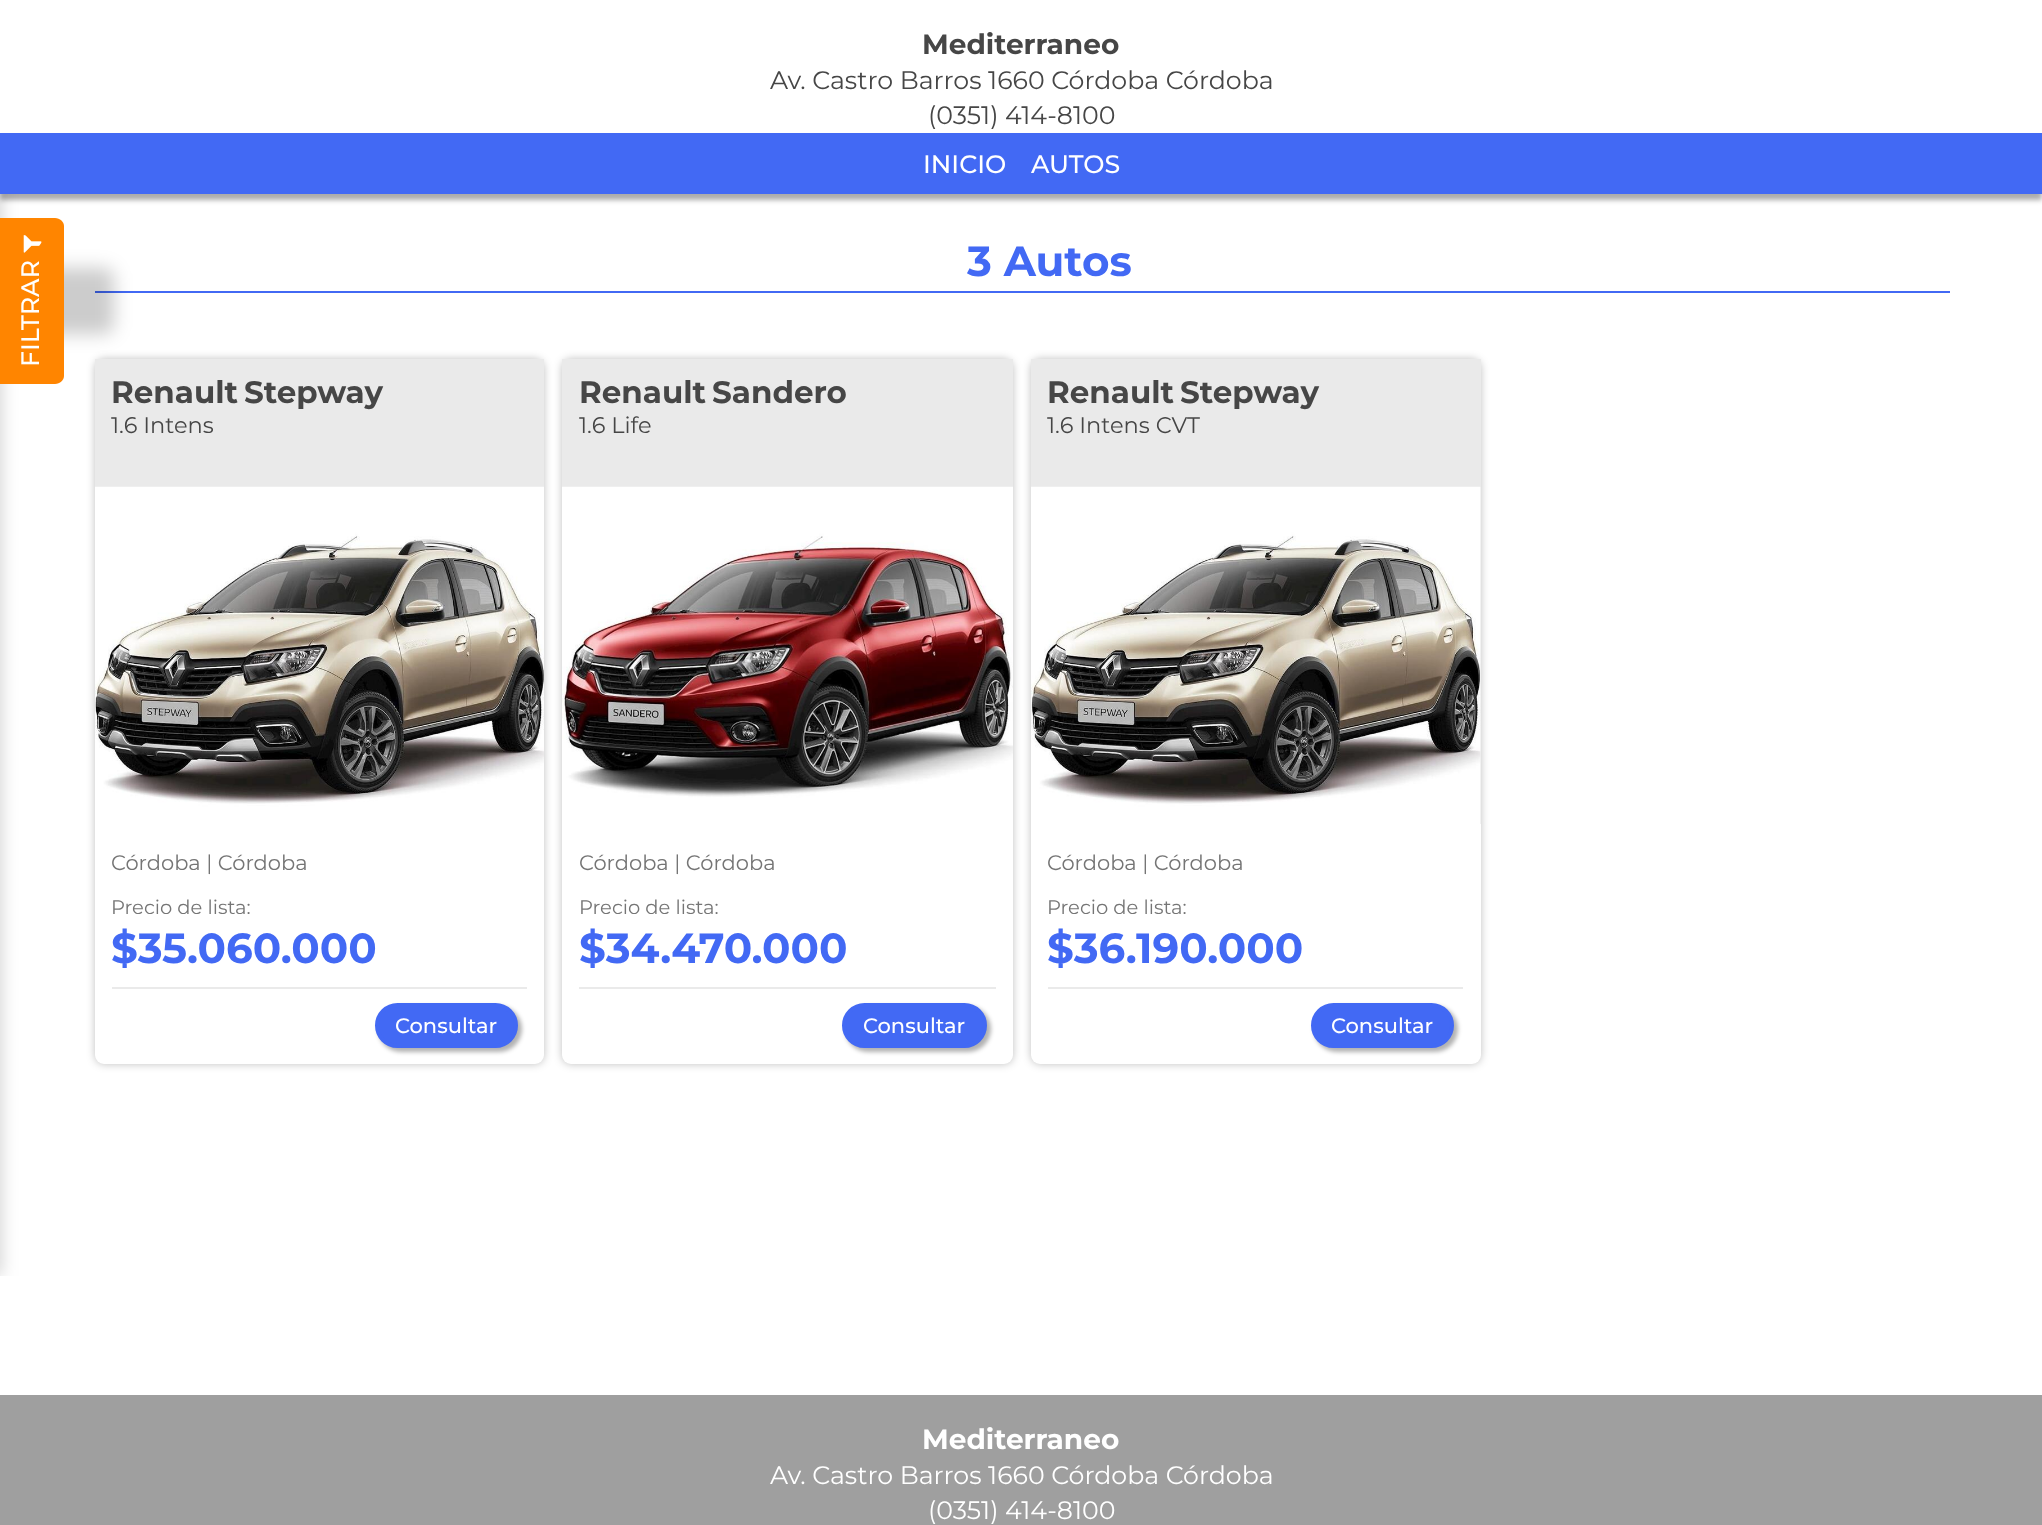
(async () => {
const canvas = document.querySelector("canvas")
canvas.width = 2042
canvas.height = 1525
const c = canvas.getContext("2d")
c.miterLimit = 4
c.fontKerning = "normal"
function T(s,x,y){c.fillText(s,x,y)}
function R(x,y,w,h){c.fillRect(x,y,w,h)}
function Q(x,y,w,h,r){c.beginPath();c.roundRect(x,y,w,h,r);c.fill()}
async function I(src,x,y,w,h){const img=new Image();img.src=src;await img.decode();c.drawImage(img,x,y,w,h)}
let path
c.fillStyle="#fff"
R(0,0,2042,1525)
c.font="bold 28px Montserrat"
c.fillStyle="#464646"
T("Mediterraneo",922,54)
c.font="25.25px Montserrat"
T("Av. Castro Barros 1660 Córdoba Córdoba",770,89)
T("(0351) 414-8100",928,124)
c.fillStyle="#00000054"
c.filter="blur(2.5px)"
c.beginPath()
c.rect(0,138,2042,62)
c.fill()
c.filter="none"
c.save()
c.beginPath()
c.rect(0,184,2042,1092)
c.clip()
c.fillStyle="#00000033"
c.filter="blur(9px)"
c.beginPath()
c.rect(-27,184,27,1092)
c.fill()
c.filter="none"
c.restore()
c.fillStyle="#4269f4"
R(0,133,2042,61)
c.font="500 25.25px Montserrat"
c.fillStyle="#fff"
T("INICIO",923,173)
T("AUTOS",1031,173)
c.fillStyle="#4269f4"
R(95,291,1855,2)
c.fillStyle="#00000040"
c.filter="blur(4.5px)"
c.beginPath()
c.roundRect(95,359,449,705,9)
c.fill()
c.filter="none"
c.fillStyle="#fff"
Q(95,359,449,705,9)
c.fillStyle="#eaeaea"
R(95,359,449,128)
c.fillStyle="#00000033"
c.filter="blur(9px)"
c.beginPath()
c.roundRect(-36,268,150,66,9)
c.fill()
c.filter="none"
c.fillStyle="#ff8500"
path = new Path2D("M-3 384v-166h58c5 0 9 4 9 8v150c0 4-4 8-9 8z")
c.fill(path)
await I("1.png",23,235,19,18)
c.fillStyle="#fff"
c.save()
c.translate(39,367)
c.rotate(-90 * Math.PI / 180)
c.fillText("FILTRAR",0,0)
c.restore()
c.font="bold 42px Montserrat"
c.fillStyle="#4269f4"
T("3 Autos",967,276)
c.font="bold 31px Montserrat"
c.fillStyle="#464646"
T("Renault",111,403)
T("Stepway",244,403)
c.font="22.5px Montserrat"
T("1.6 Intens",111,433)
await I("2.png",95,486,449,338)
c.font="21px Montserrat"
c.fillStyle="#757575"
T("Córdoba | Córdoba",111,870)
c.font="19.5px Montserrat"
T("Precio de lista:",111,914)
c.font="bold 42px Montserrat"
c.fillStyle="#4269f4"
T("$35.060.000",111,963)
c.fillStyle="#eaeaea"
R(112,987,415,2)
c.fillStyle="#0000004d"
c.filter="blur(2px)"
c.beginPath()
c.roundRect(378,1006,144,46,23)
c.fill()
c.filter="none"
c.fillStyle="#4269f4"
c.beginPath()
c.roundRect(377,1005,139,41,20.5)
c.fill()
c.strokeStyle="#4269f4"
c.lineWidth=4
c.stroke()
c.font="500 21px Montserrat"
c.fillStyle="#fff"
T("Consultar",395,1033)
c.fillStyle="#00000040"
c.filter="blur(4.5px)"
c.beginPath()
c.roundRect(562,359,451,705,9)
c.fill()
c.filter="none"
c.fillStyle="#fff"
Q(562,359,451,705,9)
c.fillStyle="#eaeaea"
R(562,359,451,128)
c.font="bold 31px Montserrat"
c.fillStyle="#464646"
T("Sandero",712,403)
c.font="22.5px Montserrat"
T("1.6 Life",579,433)
c.font="bold 31px Montserrat"
T("Renault",579,403)
await I("3.png",562,486,451,338)
c.font="21px Montserrat"
c.fillStyle="#757575"
T("Córdoba | Córdoba",579,870)
c.font="19.5px Montserrat"
T("Precio de lista:",579,914)
c.font="bold 42px Montserrat"
c.fillStyle="#4269f4"
T("$34.470.000",579,963)
c.fillStyle="#eaeaea"
R(579,987,417,2)
c.fillStyle="#0000004d"
c.filter="blur(2px)"
c.beginPath()
c.roundRect(845,1006,146,46,23)
c.fill()
c.filter="none"
c.fillStyle="#4269f4"
c.beginPath()
c.roundRect(844,1005,141,41,20.5)
c.fill()
c.stroke()
c.font="500 21px Montserrat"
c.fillStyle="#fff"
T("Consultar",863,1033)
c.fillStyle="#00000040"
c.filter="blur(4.5px)"
c.beginPath()
c.roundRect(1031,359,450,705,9)
c.fill()
c.filter="none"
c.fillStyle="#fff"
Q(1031,359,450,705,9)
c.fillStyle="#eaeaea"
R(1031,359,450,128)
c.font="bold 31px Montserrat"
c.fillStyle="#464646"
T("Renault",1047,403)
T("Stepway",1180,403)
c.font="22.5px Montserrat"
T("1.6 Intens CVT",1047,433)
c.fillStyle="#eee"
R(1480,487,1,337)
await I("4.png",1031,486,450,338)
c.font="21px Montserrat"
c.fillStyle="#757575"
T("Córdoba | Córdoba",1047,870)
c.font="19.5px Montserrat"
T("Precio de lista:",1047,914)
c.font="bold 42px Montserrat"
c.fillStyle="#4269f4"
T("$36.190.000",1047,963)
c.fillStyle="#eaeaea"
R(1048,987,415,2)
c.fillStyle="#0000004d"
c.filter="blur(2px)"
c.beginPath()
c.roundRect(1314,1006,144,46,23)
c.fill()
c.filter="none"
c.fillStyle="#4269f4"
c.beginPath()
c.roundRect(1313,1005,139,41,20.5)
c.fill()
c.stroke()
c.font="500 21px Montserrat"
c.fillStyle="#fff"
T("Consultar",1331,1033)
c.fillStyle="#9f9f9f"
R(0,1395,2042,130)
c.font="bold 28px Montserrat"
c.fillStyle="#fff"
T("Mediterraneo",922,1449)
c.font="25.25px Montserrat"
T("Av. Castro Barros 1660 Córdoba Córdoba",770,1484)
T("(0351) 414-8100",928,1519)
})()
